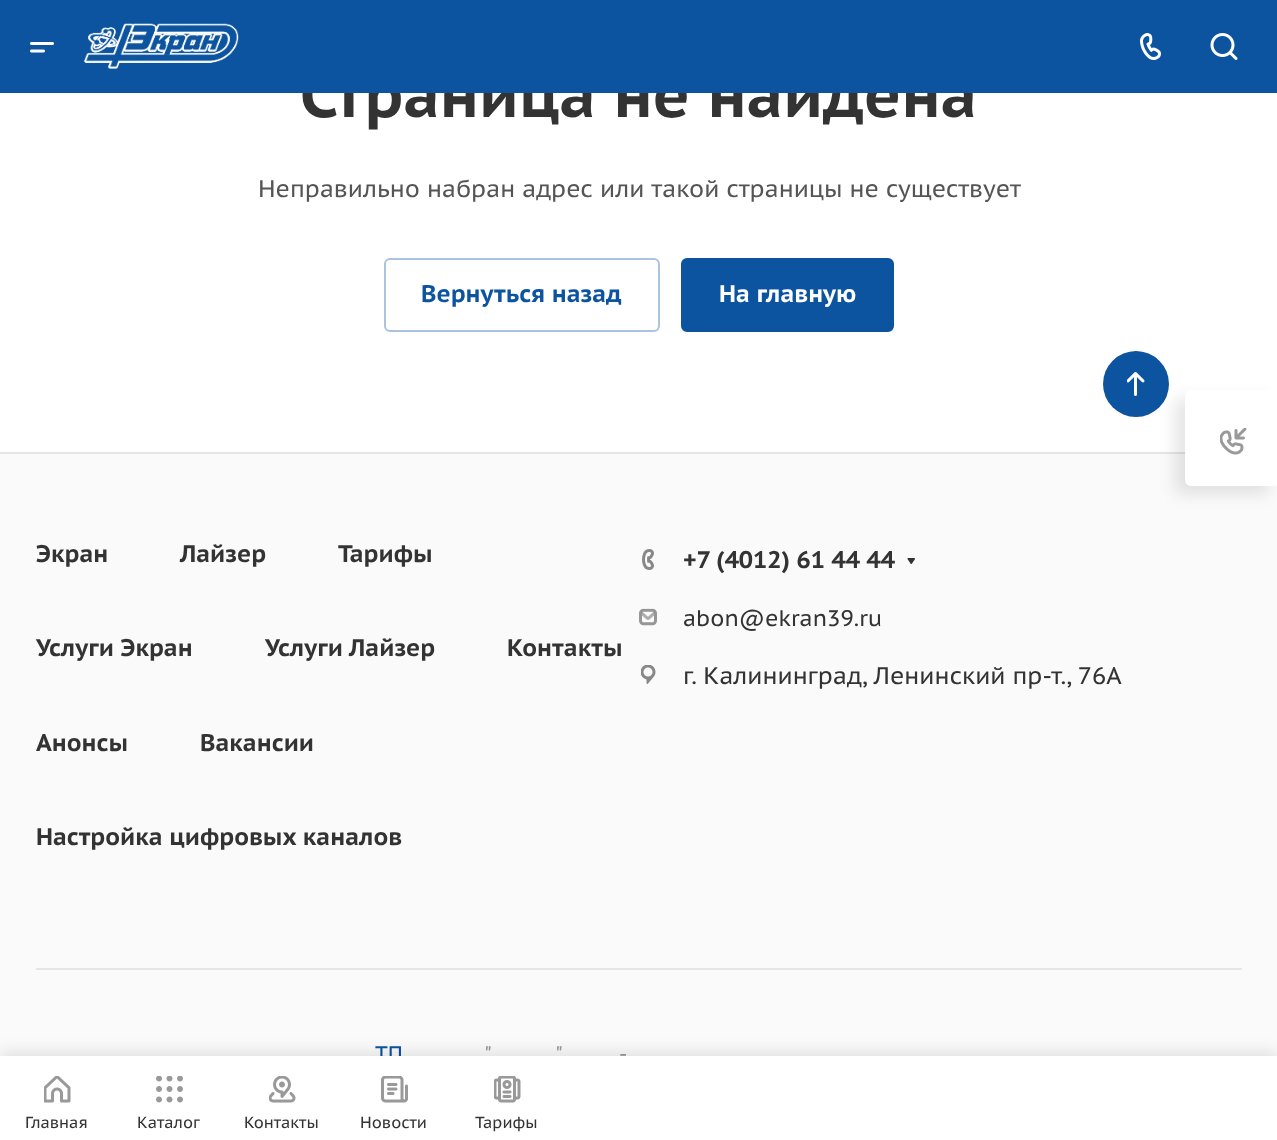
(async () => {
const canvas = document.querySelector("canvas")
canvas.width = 1277
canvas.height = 1140
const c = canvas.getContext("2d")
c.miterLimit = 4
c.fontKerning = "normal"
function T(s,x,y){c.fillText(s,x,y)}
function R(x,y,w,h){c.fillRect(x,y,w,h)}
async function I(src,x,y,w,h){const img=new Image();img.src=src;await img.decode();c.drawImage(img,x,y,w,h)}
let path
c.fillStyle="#fff"
R(0,0,1277,1140)
c.font="bold 63px PT Sans Caption"
c.fillStyle="#333"
T("Страница не найдена",300,117)
c.fillStyle="#0c54a0"
R(0,0,1277,93)
await I("1.png",30,42,24,11)
await I("2.png",84,23,155,46)
await I("3.png",1140,33,21,27)
await I("4.png",1210,33,28,27)
c.font="24px PT Sans Caption"
c.fillStyle="#555"
T("Неправильно набран адрес или такой страницы не существует",258,197)
c.beginPath()
c.roundRect(385,259,274,72,5)
c.strokeStyle="#aac3de"
c.lineWidth=2
c.stroke()
c.font="bold 24px PT Sans Caption"
c.fillStyle="#0c54a0"
T("Вернуться назад",421,302)
c.beginPath()
c.roundRect(682,259,211,72,5)
c.fill()
c.strokeStyle="#0c54a0"
c.stroke()
c.fillStyle="#fff"
T("На главную",719,302)
c.fillStyle="#0c54a0"
c.beginPath()
c.arc(1136,384,33,0,7)
c.fill()
await I("5.png",1127,372,18,24)
c.fillStyle="#fafafa"
R(0,454,1277,602)
c.fillStyle="#e5e5e5"
R(0,452,1185,2)
c.fillStyle="#0000001a"
c.filter="blur(8px)"
c.beginPath()
c.roundRect(1175,398,94,96,6)
c.fill()
c.filter="none"
c.fillStyle="#fff"
path = new Path2D("M1191 390h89v96h-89c-3.5 0-6-2.5-6-6v-84c0-3.5 2.5-6 6-6z")
c.fill(path)
await I("6.png",1220,428,27,27)
c.fillStyle="#333"
T("Экран",36,562)
T("Лайзер",180,562)
T("Тарифы",338,562)
T("Услуги Экран",36,656)
T("Услуги Лайзер",265,656)
T("Контакты",507,656)
T("Анонсы",36,751)
T("Вакансии",200,751)
T("Настройка цифровых каналов",36,845)
await I("7.png",642,549,12,21)
T("+7 (4012) 61 44 44",683,568)
await I("8.png",907,558,8,6)
await I("9.png",639,608,18,18)
c.font="22.5px PT Sans Caption"
T("abon@ekran39.ru",683,626)
await I("10.png",641,665,15,19)
c.font="24px PT Sans Caption"
T("г. Калининград, Ленинский пр-т., 76А",683,684)
c.fillStyle="#e5e5e5"
R(36,968,1206,2)
c.font="21px PT Sans Caption"
c.fillStyle="#0c54a0"
T("ТП",375,1061)
c.fillStyle="#999"
T("\"",484,1061)
T("\"",555,1061)
T("-",619,1061)
c.fillStyle="#0000001a"
c.filter="blur(7.5px)"
c.beginPath()
c.rect(0,1052,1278,84)
c.fill()
c.filter="none"
c.fillStyle="#fff"
R(0,1056,1277,84)
await I("11.png",44,1076,27,27)
c.font="16px PT Sans Caption"
c.fillStyle="#333"
T("Главная",25,1128)
await I("12.png",156,1076,27,27)
T("Каталог",137,1128)
await I("13.png",269,1076,27,27)
T("Контакты",244,1128)
await I("14.png",381,1076,27,27)
T("Новости",360,1128)
await I("15.png",494,1076,27,27)
T("Тарифы",475,1128)
})()
